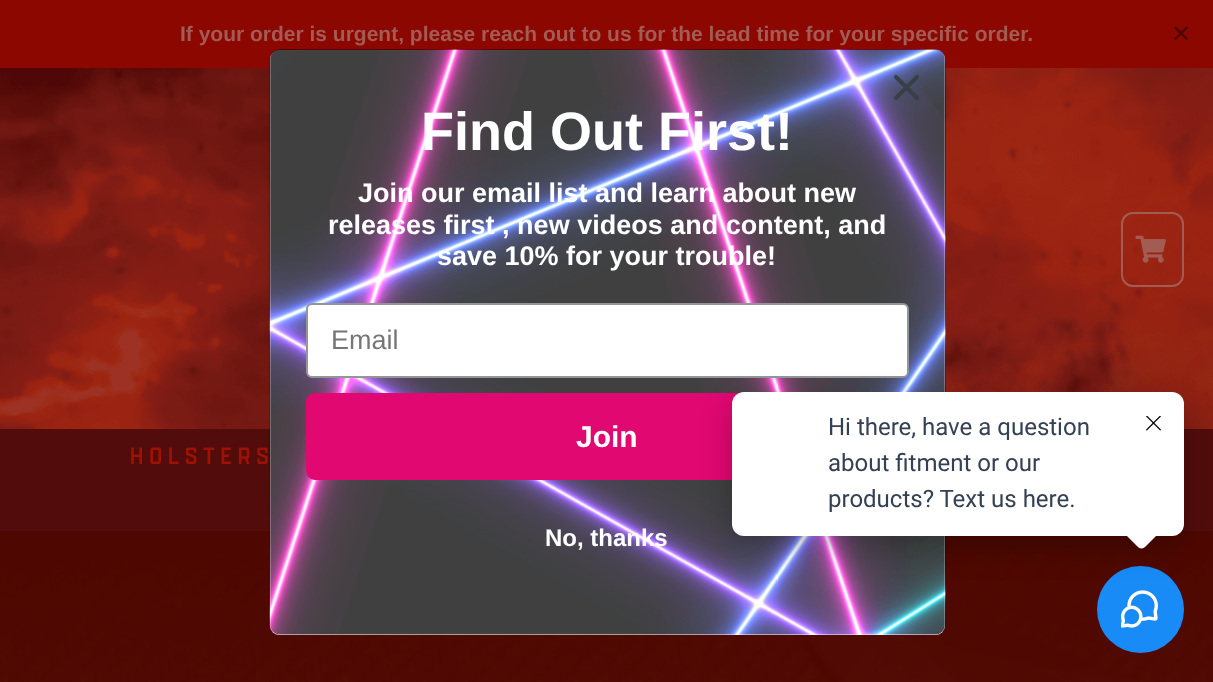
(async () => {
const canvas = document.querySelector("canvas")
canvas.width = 1213
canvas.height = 682
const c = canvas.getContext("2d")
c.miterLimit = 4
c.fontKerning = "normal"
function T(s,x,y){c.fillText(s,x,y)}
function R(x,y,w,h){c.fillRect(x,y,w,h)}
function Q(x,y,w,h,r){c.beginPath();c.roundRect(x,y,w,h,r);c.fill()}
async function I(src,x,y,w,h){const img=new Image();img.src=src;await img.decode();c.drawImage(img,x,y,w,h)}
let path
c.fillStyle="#fff"
R(0,0,1213,682)
c.fillStyle="#8c0700"
R(0,0,1213,68)
c.font="bold 21px Liberation Sans"
c.fillStyle="#a25c54"
T("If your order is urgent, please reach out to us for the lead time for your specific order.",180,41)
c.font="24px DejaVu Sans"
c.fillStyle="#4e0700"
T("✕",1171,42)
await I("1.png",0,68,1213,361)
c.beginPath()
c.roundRect(1122,213,61,73,11)
c.strokeStyle="#a25c54"
c.lineWidth=2
c.stroke()
await I("2.png",1135,235,31,28)
c.fillStyle="#510c0b"
R(0,429,1213,102)
c.letterSpacing="6px"
c.font="25.5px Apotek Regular"
c.fillStyle="#9f1200"
T("HOLSTERS",130,464)
await I("3.png",0,531,1213,151)
c.fillStyle="#fff"
Q(270,50,675,585,9)
await I("4.png",269,49,677,586)
path = new Path2D("M896 77l21 21m-21 0l21-21z")
c.strokeStyle="#373f47"
c.lineWidth=3.9
c.lineCap="round"
c.lineJoin="round"
c.stroke(path)
c.letterSpacing="0px"
c.font="bold 54px Liberation Sans"
T("Find Out First!",421,150)
c.font="bold 27px Liberation Sans"
T("Join our email list and learn about new",358,202)
T("releases first , new videos and content, and",328,234)
T("save 10% for your trouble!",437,265)
c.beginPath()
c.roundRect(307,304,601,73,5)
c.fill()
c.strokeStyle="#949596"
c.lineWidth=2
c.lineJoin="miter"
c.stroke()
c.font="27px Liberation Sans"
c.fillStyle="#767676"
T("Email",331,349)
c.fillStyle="#e10871"
c.beginPath()
c.roundRect(307.5,394.5,600,84,7.5)
c.fill()
c.strokeStyle="#e10871"
c.lineWidth=3
c.stroke()
c.font="bold 30px Liberation Sans"
c.fillStyle="#fff"
T("Join",576,447)
c.font="bold 24px Liberation Sans"
T("No, thanks",545,546)
c.fillStyle="#188bf6"
c.beginPath()
c.arc(1140.5,609.5,43.5,0,7)
c.fill()
await I("6.png",1121,590,37,38)
c.fillStyle="#0000003d"
c.filter="blur(15px)"
c.beginPath()
c.roundRect(732,404,452,144,12)
c.fill()
c.filter="none"
c.fillStyle="#fff"
Q(732,392,452,144,12)
c.font="24px Roboto"
c.fillStyle="#344054"
T("Hi there, have a question",828,435)
T("about fitment or our",828,471)
T("products? Text us here.",828,507)
c.fillStyle="#fff"
path = new Path2D("M1145.5 512.5l13 13c2.5 2 2.5 6 0 8l-13 13c-2 2.5-6 2.5-8 0l-13-13c-2.5-2-2.5-6 0-8l13-13c2-2.5 6-2.5 8 0z")
c.fill(path)
await I("5.png",1146,416,15,15)
})()
